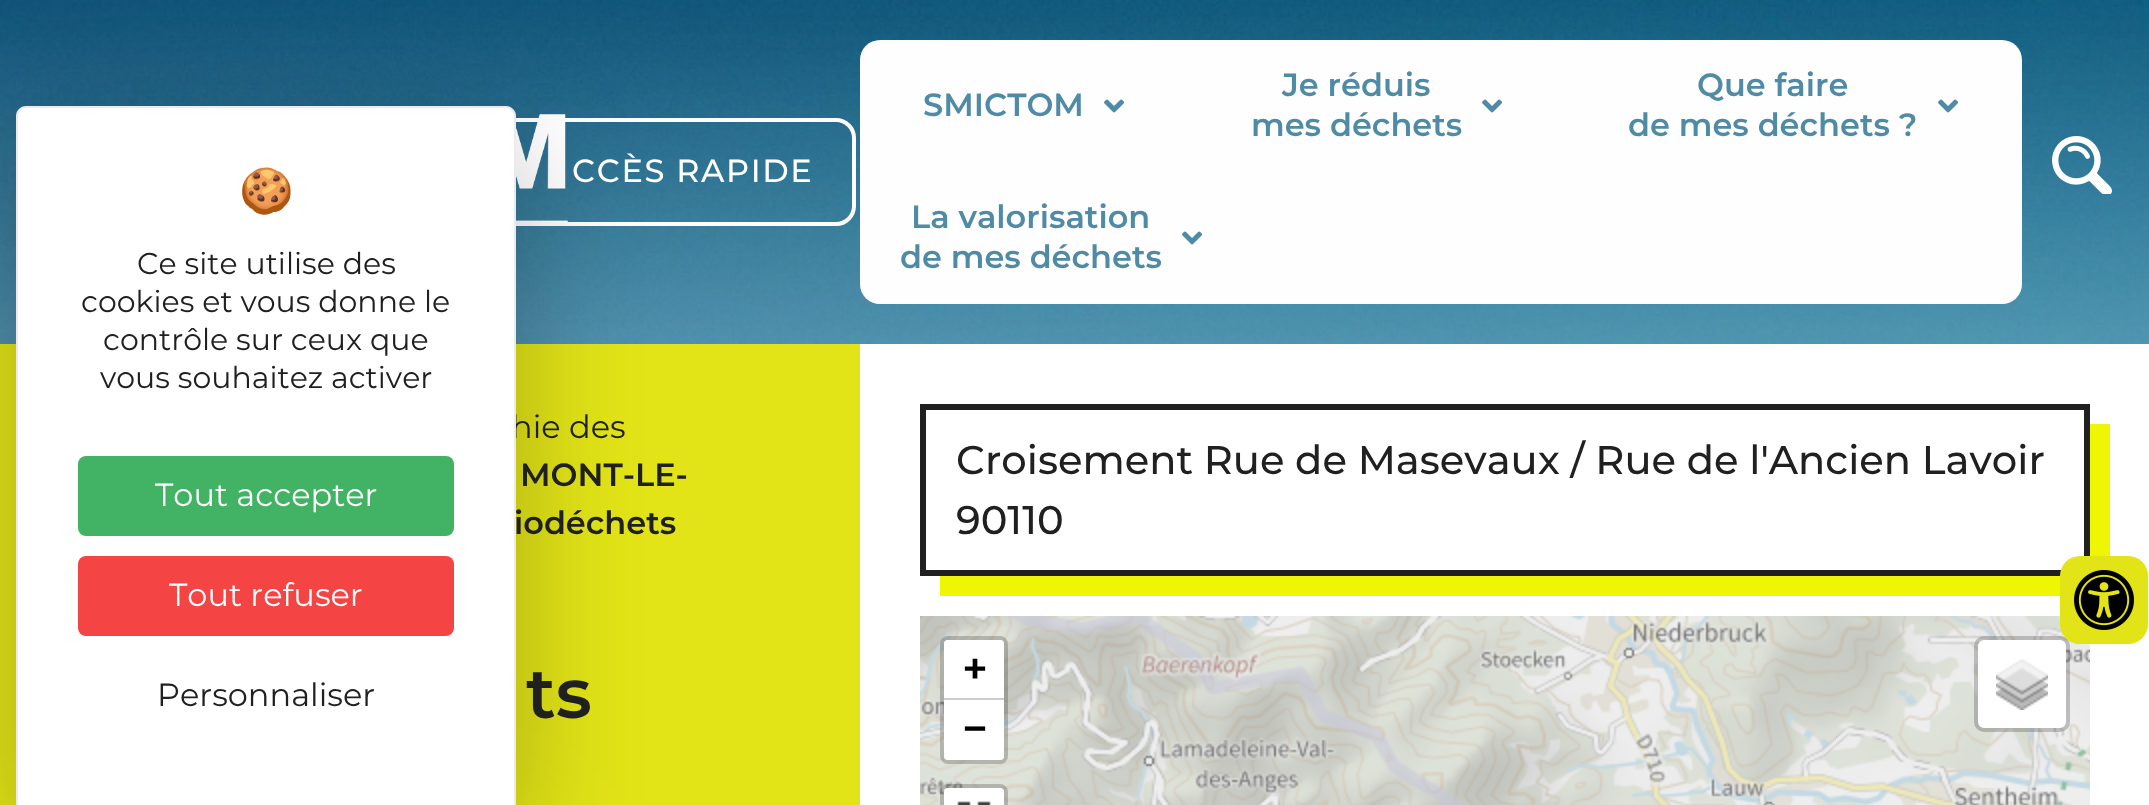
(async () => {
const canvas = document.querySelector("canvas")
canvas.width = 2149
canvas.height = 805
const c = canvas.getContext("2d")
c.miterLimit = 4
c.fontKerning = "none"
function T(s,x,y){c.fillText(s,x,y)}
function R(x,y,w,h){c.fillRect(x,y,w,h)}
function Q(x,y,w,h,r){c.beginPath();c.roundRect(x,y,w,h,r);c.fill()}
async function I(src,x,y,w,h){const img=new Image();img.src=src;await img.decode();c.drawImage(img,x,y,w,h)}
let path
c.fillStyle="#fff"
R(0,0,2149,805)
await I("1.png",0,0,2149,344)
await I("2.png",516,114,52,108)
c.beginPath()
c.roundRect(438,120,416,104,18)
c.strokeStyle="#fffefe"
c.lineWidth=4
c.stroke()
c.fillStyle="#e2e417"
R(0,344,860,461)
c.fillStyle="#00000040"
c.filter="blur(60px)"
c.beginPath()
c.roundRect(16,146,500,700,10)
c.fill()
c.filter="none"
c.font="32px Montserrat"
c.fillStyle="#202020"
T("hie des",511,438)
c.fillStyle="#fff"
path = new Path2D("M26 106h480c5.5 0 10 4.5 10 10v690h-500v-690c0-5.5 4.5-10 10-10z")
c.fill(path)
c.fillStyle="#00000014"
path = new Path2D("M26 106h480c6 0 10 4 10 10v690h-500v-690c0-6 4-10 10-10zm0 2h480c4 0 8 4 8 8v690h-496v-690c0-4 4-8 8-8z")
c.fill(path,"evenodd")
c.font="44px Noto Color Emoji"
c.fillStyle="#202020"
T("🍪",239,206)
c.font="30px Montserrat"
T("Ce site utilise des",137,274)
T("cookies et vous donne le",81,312)
T("contrôle sur ceux que",103,350)
T("vous souhaitez activer",100,388)
c.fillStyle="#42b364"
Q(78,456,376,80,8)
c.font="32px Montserrat"
c.fillStyle="#fff"
T("Tout accepter",155,506)
c.fillStyle="#f54444"
Q(78,556,376,80,8)
c.fillStyle="#fff"
T("Tout refuser",169,606)
c.fillStyle="#202020"
T("Personnaliser",157,706)
c.letterSpacing="1.6px"
c.font="500 32px Montserrat"
c.fillStyle="#fff"
T("CCÈS RAPIDE",572,182)
c.fillStyle="#fffefe"
Q(860,40,1162,264,20)
c.letterSpacing="0px"
c.font="600 32px Montserrat"
c.fillStyle="#508ba6"
T("SMICTOM",923,116)
await I("3.png",1104,99,20,14)
T("Je réduis",1282,96)
await I("3.png",1482,99,20,14)
T("mes déchets",1251,136)
T("Que faire",1697,96)
await I("3.png",1938,99,20,14)
T("de mes déchets ?",1628,136)
T("La valorisation",911,228)
await I("3.png",1182,231,20,14)
T("de mes déchets",900,268)
await I("4.png",2052,136,60,58)
c.fillStyle="#202020"
T("MONT-LE-",520,486)
T("iodéchets",514,534)
c.font="600 70px Montserrat"
T("ts",526,718)
c.fillStyle="#eff603"
path = new Path2D("M940 576v20h1170v-172h-20v152z")
c.fill(path)
c.strokeStyle="#202020"
c.lineWidth=6
c.strokeRect(923,407,1164,166)
c.font="500 40px Montserrat"
c.fillStyle="#202020"
T("Croisement Rue de Masevaux / Rue de l'Ancien Lavoir",956,474)
T("90110",956,534)
c.fillStyle="#ddd"
R(920,616,1170,189)
await I("5.png",920,616,404,189)
await I("6.png",1324,616,512,189)
await I("7.png",1836,616,254,189)
c.beginPath()
c.roundRect(942,638,64,124,6)
c.strokeStyle="#00000033"
c.lineWidth=4
c.stroke()
c.fillStyle="#fff"
c.beginPath()
c.roundRect(944,640,60,60,[4,4,0,0])
c.fill()
c.fillStyle="#ccc"
R(944,698,60,2)
c.font="600 44px Montserrat"
c.fillStyle="#000"
T("+",962,684)
c.fillStyle="#fff"
c.beginPath()
c.roundRect(944,700,60,60,[0,0,4,4])
c.fill()
c.fillStyle="#000"
T("−",962,744)
c.beginPath()
c.roundRect(942,786,64,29,6)
c.stroke()
c.fillStyle="#fff"
Q(944,788,60,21,4)
await I("8.png",957,801,34,4)
Q(1978,640,88,88,6)
c.beginPath()
c.roundRect(1976,638,92,92,8)
c.stroke()
await I("9.png",1996,659,52,51)
c.fillStyle="#e2e417"
Q(2060,556,88,88,20)
await I("10.png",2074,570,60,60)
})()
